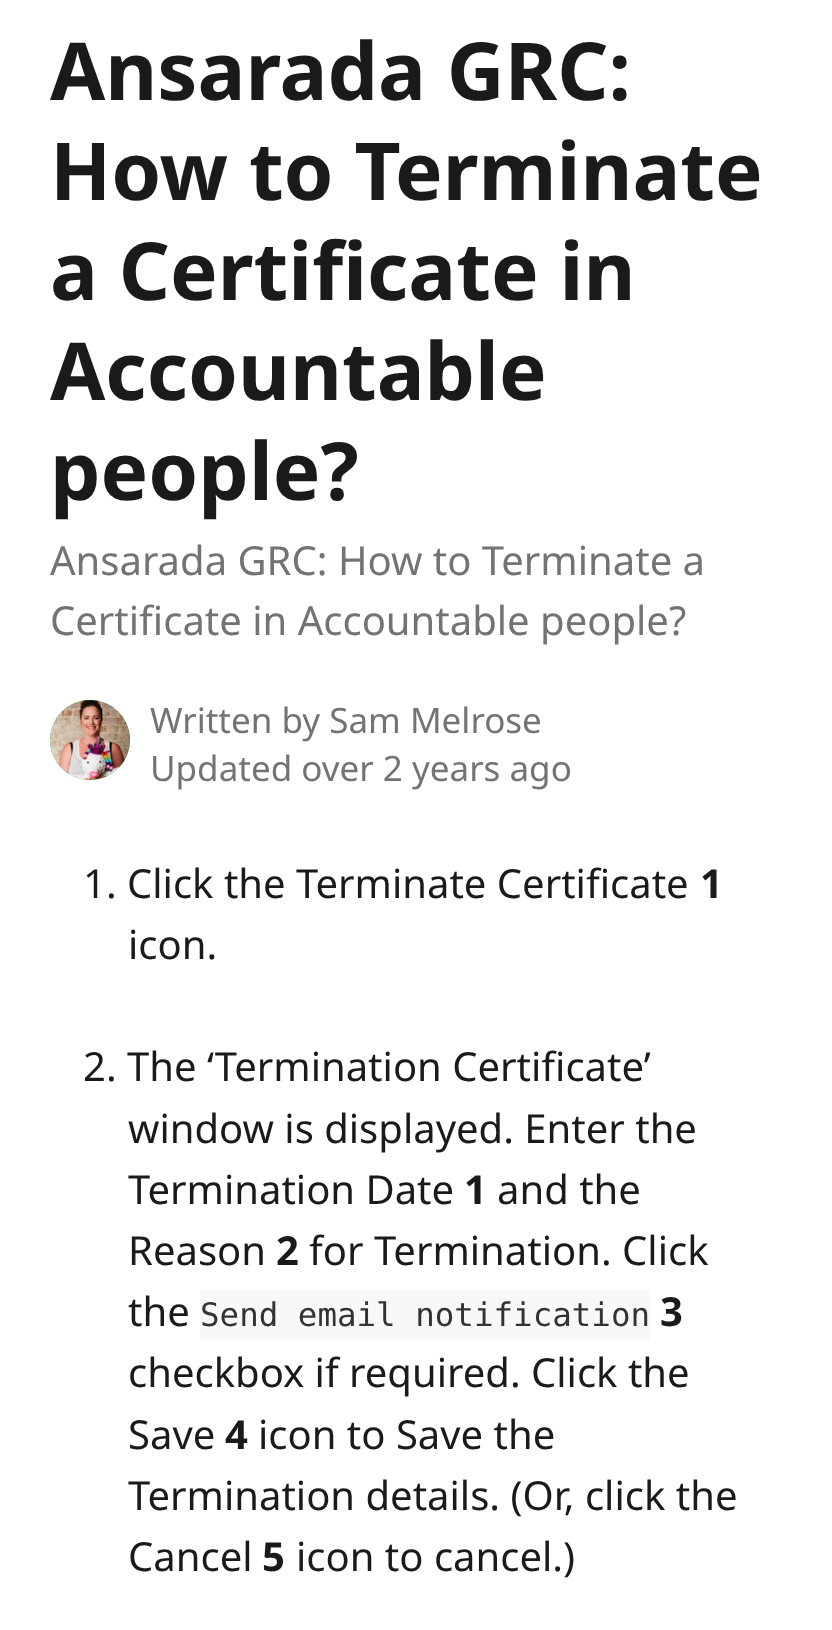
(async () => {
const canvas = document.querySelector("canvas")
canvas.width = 832
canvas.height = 1630
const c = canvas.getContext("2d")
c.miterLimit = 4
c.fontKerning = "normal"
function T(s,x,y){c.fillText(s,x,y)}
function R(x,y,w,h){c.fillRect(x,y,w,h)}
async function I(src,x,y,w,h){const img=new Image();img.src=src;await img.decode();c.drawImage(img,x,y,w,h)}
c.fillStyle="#fff"
R(0,0,832,1630)
c.font="bold 80px Noto Sans"
c.fillStyle="#1a1a1a"
T("Ansarada GRC:",50,100)
T("How to Terminate",50,200)
T("a Certificate in",50,300)
T("Accountable",50,400)
T("people?",50,500)
c.font="40px Noto Sans"
c.fillStyle="#737373"
T("Ansarada GRC: How to Terminate a",50,575)
T("Certificate in Accountable people?",50,635)
c.fillStyle="#06ac46"
c.beginPath()
c.arc(90,740,40,0,7)
c.fill()
await I("1.png",50,700,80,80)
c.font="35px Noto Sans"
c.fillStyle="#737373"
T("Written by Sam Melrose",150,733)
T("Updated over 2 years ago",150,781)
c.font="40px Noto Sans"
c.fillStyle="#1a1a1a"
T("1. Click the Terminate Certificate",83,898)
c.font="bold 40px Noto Sans"
T("1",700,898)
c.font="40px Noto Sans"
T("icon.",128,959)
T("2. The ‘Termination Certificate’",83,1081)
T("window is displayed. Enter the",128,1143)
T("Termination Date",128,1204)
c.font="bold 40px Noto Sans"
T("1",464,1204)
c.font="40px Noto Sans"
T("and the",497,1204)
T("Reason",128,1265)
c.font="bold 40px Noto Sans"
T("2",276,1265)
c.font="40px Noto Sans"
T("for Termination. Click",309,1265)
T("the",128,1326)
c.fillStyle="#f8f8f8"
R(200,1290,450,50)
c.font="32.5px DejaVu Sans Mono"
c.fillStyle="#333"
T("Send email notification",200,1326)
c.font="bold 40px Noto Sans"
c.fillStyle="#1a1a1a"
T("3",660,1326)
c.font="40px Noto Sans"
T("checkbox if required. Click the",128,1387)
T("Save",128,1449)
c.font="bold 40px Noto Sans"
T("4",225,1449)
c.font="40px Noto Sans"
T("icon to Save the",258,1449)
T("Termination details. (Or, click the",128,1510)
T("Cancel",128,1571)
c.font="bold 40px Noto Sans"
T("5",262,1571)
c.font="40px Noto Sans"
T("icon to cancel.)",296,1571)
})()
